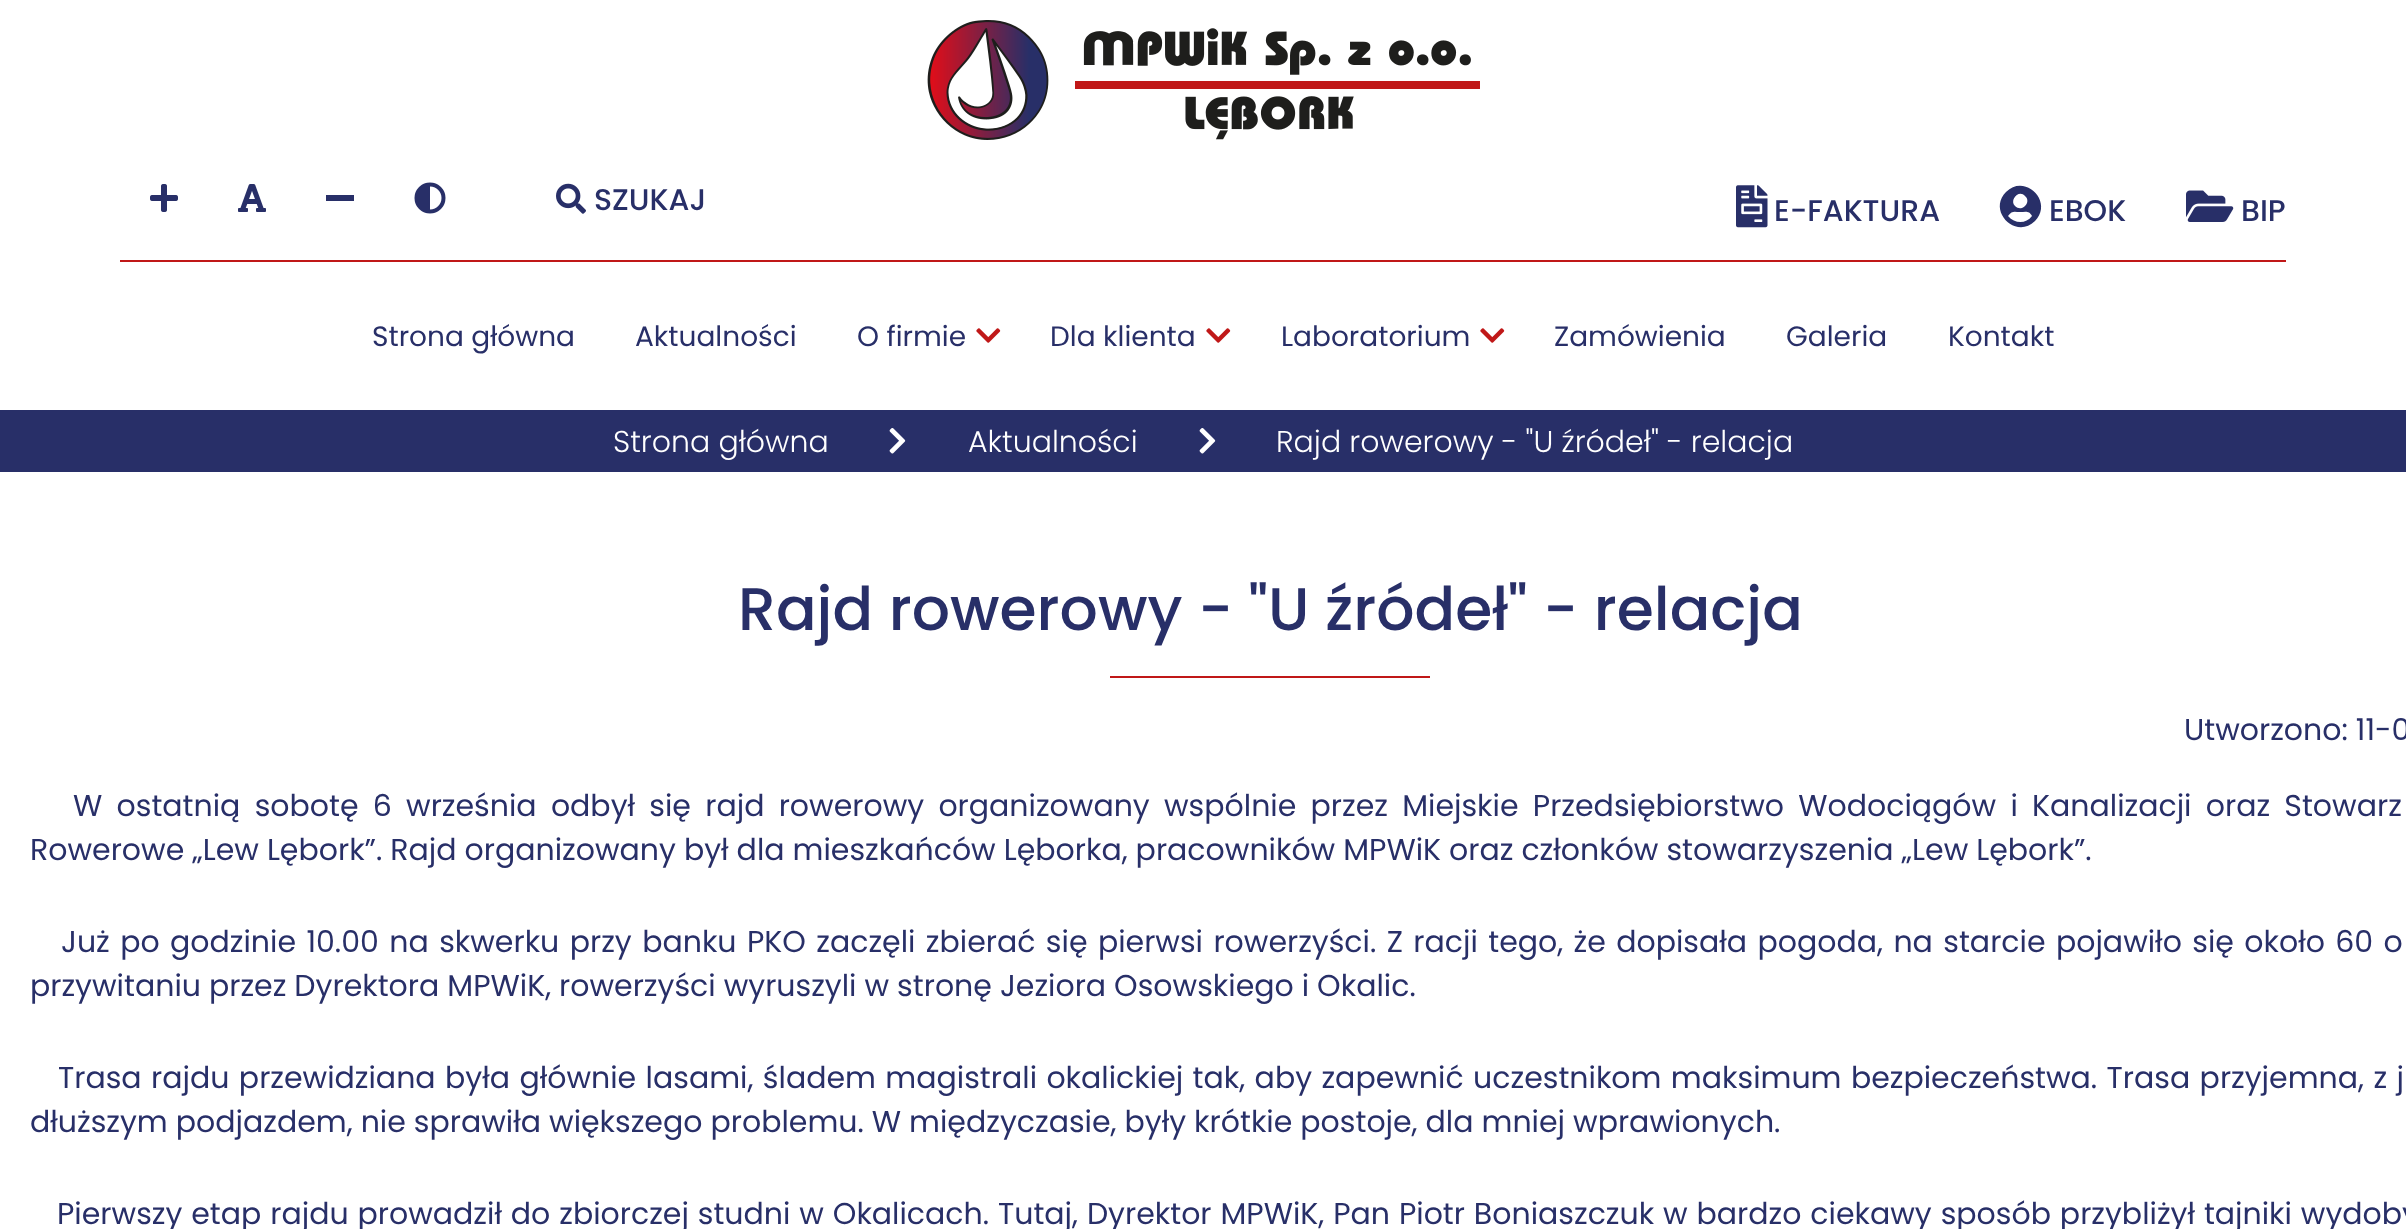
(async () => {
const canvas = document.querySelector("canvas")
canvas.width = 2406
canvas.height = 1229
const c = canvas.getContext("2d")
c.miterLimit = 4
c.fontKerning = "normal"
function T(s,x,y){c.fillText(s,x,y)}
function R(x,y,w,h){c.fillRect(x,y,w,h)}
async function I(src,x,y,w,h){const img=new Image();img.src=src;await img.decode();c.drawImage(img,x,y,w,h)}
let path
c.fillStyle="#fff"
R(0,0,2406,1229)
await I("1.png",927,20,553,120)
await I("2.png",150,184,28,28)
await I("3.png",238,184,28,28)
c.fillStyle="#282f68"
R(326,195,28,6)
await I("4.png",414,182,32,32)
await I("5.png",556,183,30,31)
c.font="500 30px Poppins"
T("SZUKAJ",594,210)
await I("6.png",1736,185,32,43)
T("E-FAKTURA",1774,221)
path = new Path2D("M2006 192c19-19 48 10 29 29c-19 19-48-10-29-29zm19 4c-6-7-16 4-10 10c7 7 17-4 10-10zm-17 20c7 8 18 8 24 0c-3-6-7-4-12-4c-5 0-8-2-12 4z")
c.fill(path)
T("EBOK",2049,221)
await I("7.png",2186,190,48,32)
T("BIP",2241,221)
c.fillStyle="#c01818"
R(120,260,2166,2)
c.font="28px Poppins"
c.fillStyle="#282f68"
T("Strona główna",372,346)
T("Aktualności",635,346)
T("O firmie",857,346)
await I("8.png",976,328,25,15)
T("Dla klienta",1050,346)
await I("8.png",1206,328,25,15)
T("Laboratorium",1281,346)
await I("8.png",1480,328,25,15)
T("Zamówienia",1554,346)
T("Galeria",1786,346)
T("Kontakt",1948,346)
R(0,410,2406,62)
c.font="300 30px Poppins"
c.fillStyle="#fff"
T("Strona główna",613,452)
await I("9.png",889,428,17,26)
T("Aktualności",968,452)
await I("9.png",1199,428,17,26)
T("Rajd rowerowy - \"U źródeł\" - relacja",1276,452)
c.font="500 60px Poppins"
c.fillStyle="#282f68"
T("Rajd rowerowy - \"U źródeł\" - relacja",738,630)
c.fillStyle="#c01818"
R(1110,676,320,2)
c.font="30px Poppins"
c.fillStyle="#282f68"
T("Utworzono: 11-0",2184,740)
c.wordSpacing="6.25px"
T("W ostatnią sobotę 6 września odbył się rajd rowerowy organizowany wspólnie przez Miejskie Przedsiębiorstwo Wodociągów i Kanalizacji oraz Stowarz",73,816)
c.wordSpacing="0px"
T("Rowerowe „Lew Lębork”. Rajd organizowany był dla mieszkańców Lęborka, pracowników MPWiK oraz członków stowarzyszenia „Lew Lębork”.",30,860)
c.wordSpacing="2.4px"
T("Już po godzinie 10.00 na skwerku przy banku PKO zaczęli zbierać się pierwsi rowerzyści. Z racji tego, że dopisała pogoda, na starcie pojawiło się około 60 o",61,952)
c.wordSpacing="0px"
T("przywitaniu przez Dyrektora MPWiK, rowerzyści wyruszyli w stronę Jeziora Osowskiego i Okalic.",30,996)
c.wordSpacing="1.4px"
T("Trasa rajdu przewidziana była głównie lasami, śladem magistrali okalickiej tak, aby zapewnić uczestnikom maksimum bezpieczeństwa. Trasa przyjemna, z j",58,1088)
c.wordSpacing="0px"
T("dłuższym podjazdem, nie sprawiła większego problemu. W międzyczasie, były krótkie postoje, dla mniej wprawionych.",30,1132)
c.wordSpacing="0.9px"
T("Pierwszy etap rajdu prowadził do zbiorczej studni w Okalicach. Tutaj, Dyrektor MPWiK, Pan Piotr Boniaszczuk w bardzo ciekawy sposób przybliżył tajniki wydoby",57,1224)
})()
